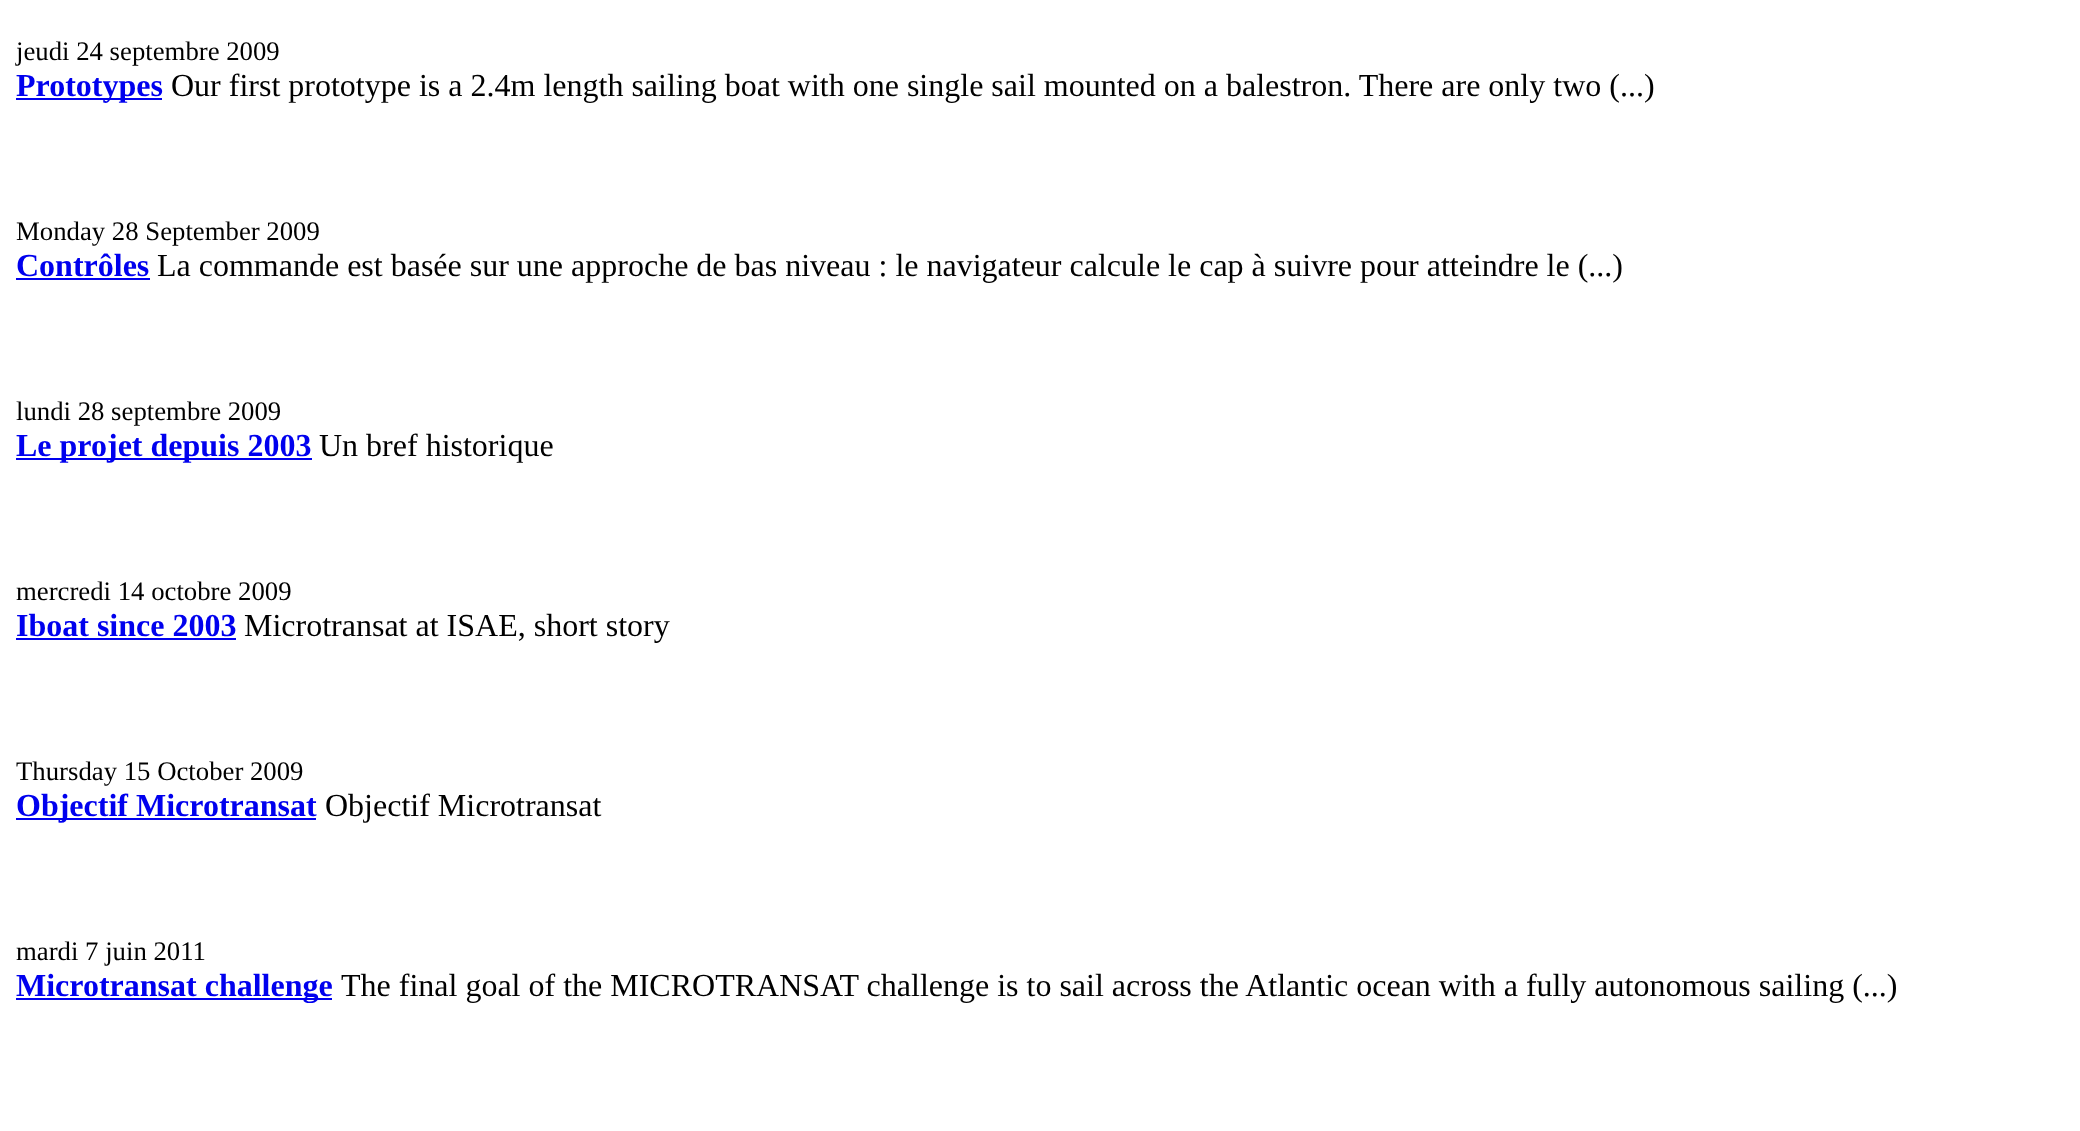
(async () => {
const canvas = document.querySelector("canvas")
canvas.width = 2080
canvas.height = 1131
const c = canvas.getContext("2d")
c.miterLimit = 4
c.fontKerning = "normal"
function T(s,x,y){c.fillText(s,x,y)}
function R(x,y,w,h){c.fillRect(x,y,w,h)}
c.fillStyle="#fff"
R(0,0,2080,1131)
c.font="26.75px Liberation Serif"
c.fillStyle="#000"
T("jeudi 24 septembre 2009",16,60)
c.fillStyle="#00e"
R(16,98,146,2)
c.font="bold 32px Liberation Serif"
T("Prototypes",16,96)
c.font="32px Liberation Serif"
c.fillStyle="#000"
T("Our first prototype is a 2.4m length sailing boat with one single sail mounted on a balestron. There are only two (...)",171,96)
c.font="26.75px Liberation Serif"
T("Monday 28 September 2009",16,240)
c.font="bold 32px Liberation Serif"
c.fillStyle="#00e"
T("Contrôles",16,276)
R(16,278,134,2)
c.font="32px Liberation Serif"
c.fillStyle="#000"
T("La commande est basée sur une approche de bas niveau : le navigateur calcule le cap à suivre pour atteindre le (...)",157,276)
c.font="26.75px Liberation Serif"
T("lundi 28 septembre 2009",16,420)
c.fillStyle="#00e"
R(16,458,296,2)
c.font="bold 32px Liberation Serif"
T("Le projet depuis 2003",16,456)
c.font="32px Liberation Serif"
c.fillStyle="#000"
T("Un bref historique",319,456)
c.font="26.75px Liberation Serif"
T("mercredi 14 octobre 2009",16,600)
c.font="bold 32px Liberation Serif"
c.fillStyle="#00e"
T("Iboat since 2003",16,636)
R(16,638,220,2)
c.font="32px Liberation Serif"
c.fillStyle="#000"
T("Microtransat at ISAE, short story",244,636)
c.font="26.75px Liberation Serif"
T("Thursday 15 October 2009",16,780)
c.fillStyle="#00e"
R(16,818,300,2)
c.font="bold 32px Liberation Serif"
T("Objectif Microtransat",16,816)
c.font="32px Liberation Serif"
c.fillStyle="#000"
T("Objectif Microtransat",325,816)
c.font="26.75px Liberation Serif"
T("mardi 7 juin 2011",16,960)
c.fillStyle="#00e"
R(16,998,316,2)
c.font="bold 32px Liberation Serif"
T("Microtransat challenge",16,996)
c.font="32px Liberation Serif"
c.fillStyle="#000"
T("The final goal of the MICROTRANSAT challenge is to sail across the Atlantic ocean with a fully autonomous sailing (...)",341,996)
})()
